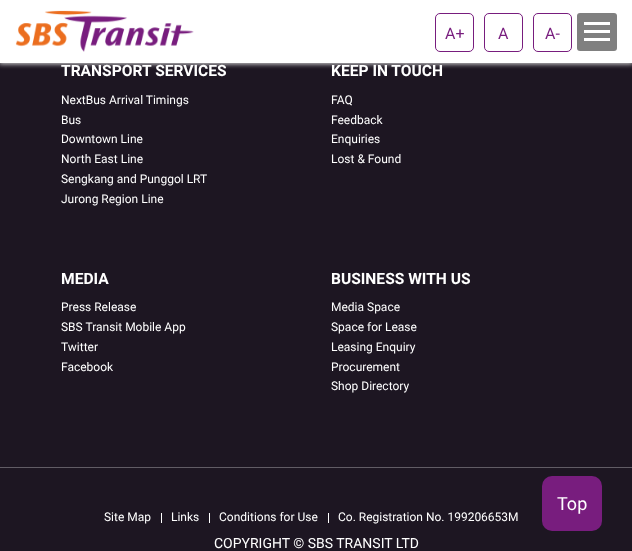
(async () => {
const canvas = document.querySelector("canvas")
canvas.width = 632
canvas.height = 551
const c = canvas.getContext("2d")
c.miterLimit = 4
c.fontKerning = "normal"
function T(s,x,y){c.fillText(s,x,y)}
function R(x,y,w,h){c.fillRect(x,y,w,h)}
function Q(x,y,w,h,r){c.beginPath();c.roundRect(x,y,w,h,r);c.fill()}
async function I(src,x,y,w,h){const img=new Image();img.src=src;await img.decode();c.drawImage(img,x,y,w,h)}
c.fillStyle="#1d1622"
R(0,0,632,551)
c.fillStyle="#ddd"
c.filter="blur(2.5px)"
c.beginPath()
c.rect(-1,-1,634,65)
c.fill()
c.filter="none"
c.fillStyle="#fff"
R(0,0,632,63)
await I("1.png",15,10,179,42)
c.beginPath()
c.roundRect(435.5,13.5,38,38,4.5)
c.strokeStyle="#781d7e"
c.stroke()
c.font="16px Roboto"
c.fillStyle="#781d7e"
T("A+",445,39)
c.beginPath()
c.roundRect(484.5,13.5,38,38,4.5)
c.stroke()
T("A",498,39)
c.beginPath()
c.roundRect(533.5,13.5,38,38,4.5)
c.stroke()
T("A-",545,39)
c.fillStyle="#808080"
Q(577,13,40,38,3)
c.fillStyle="#fff"
R(584,22,26,3)
R(584,30,26,3)
R(584,38,26,3)
c.fillStyle="#615c65"
R(0,467,632,1)
c.font="bold 15.6px Roboto"
c.fillStyle="#fff"
T("TRANSPORT SERVICES",61,76)
c.font="12px Roboto"
T("NextBus Arrival Timings",61,104)
T("Bus",61,124)
T("Downtown Line",61,143)
T("North East Line",61,163)
T("Sengkang and Punggol LRT",61,183)
T("Jurong Region Line",61,203)
c.font="bold 15.6px Roboto"
T("KEEP IN TOUCH",331,76)
c.font="12px Roboto"
T("FAQ",331,104)
T("Feedback",331,124)
T("Enquiries",331,143)
T("Lost & Found",331,163)
c.font="bold 15.6px Roboto"
T("MEDIA",61,284)
c.font="12px Roboto"
T("Press Release",61,311)
T("SBS Transit Mobile App",61,331)
T("Twitter",61,351)
T("Facebook",61,371)
c.font="bold 15.6px Roboto"
T("BUSINESS WITH US",331,284)
c.font="12px Roboto"
T("Media Space",331,311)
T("Space for Lease",331,331)
T("Leasing Enquiry",331,351)
T("Procurement",331,371)
T("Shop Directory",331,390)
T("Site Map",104,521)
R(161,513,1,10)
T("Links",171,521)
R(209,513,1,10)
T("Conditions for Use",219,521)
R(328,513,1,10)
T("Co. Registration No. 199206653M",338,521)
c.font="14px Roboto"
T("COPYRIGHT © SBS TRANSIT LTD",214,548)
c.fillStyle="#781d7e"
Q(542,476,60,55,10)
c.font="18px Roboto"
c.fillStyle="#fff"
T("Top",557,510)
})()
